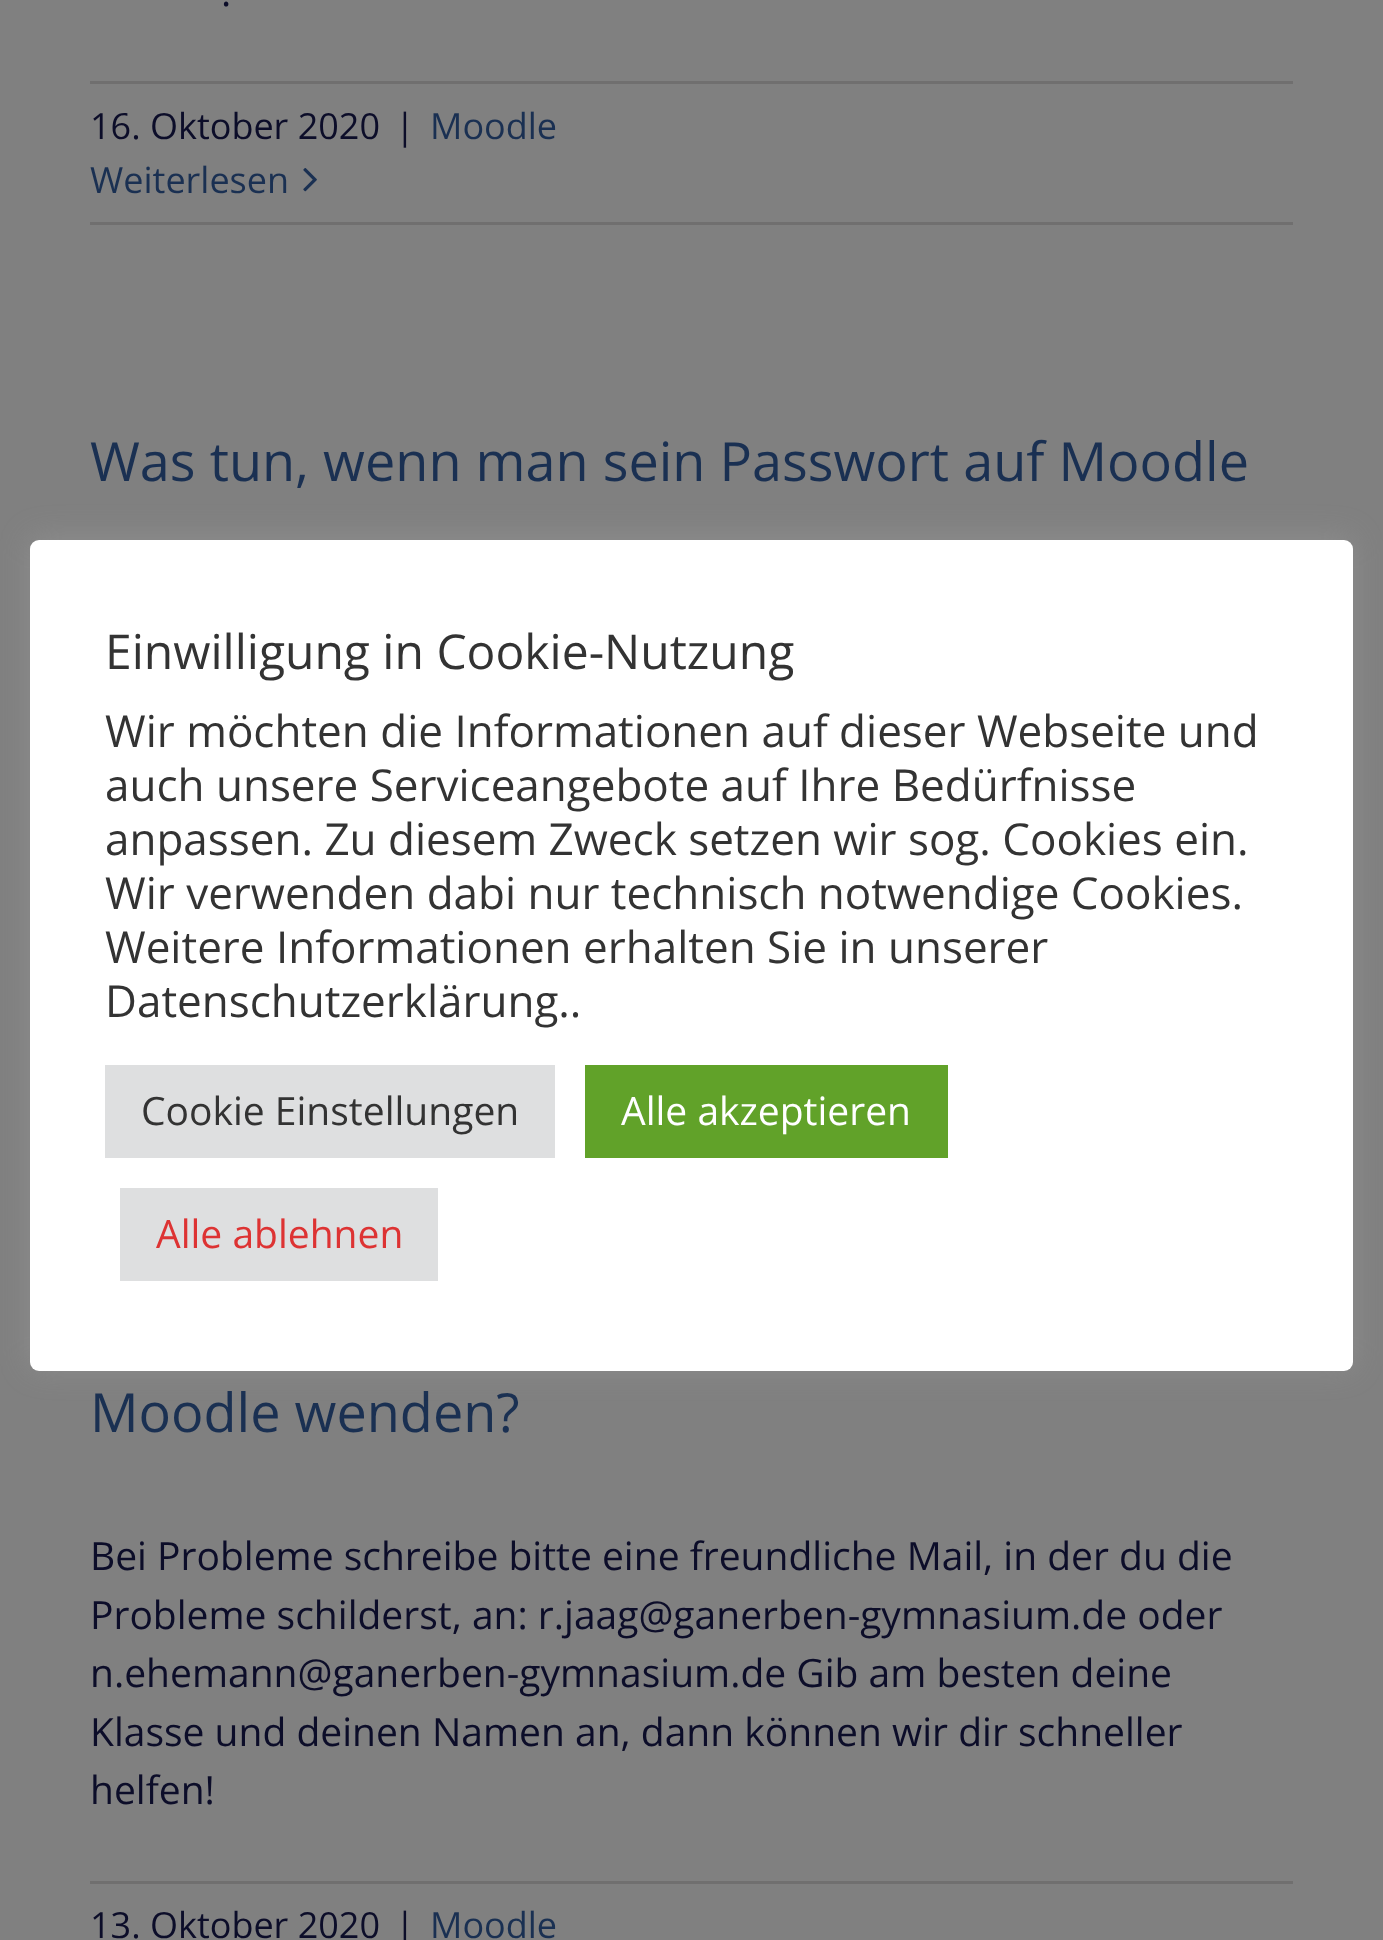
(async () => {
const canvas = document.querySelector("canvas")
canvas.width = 1383
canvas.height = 1940
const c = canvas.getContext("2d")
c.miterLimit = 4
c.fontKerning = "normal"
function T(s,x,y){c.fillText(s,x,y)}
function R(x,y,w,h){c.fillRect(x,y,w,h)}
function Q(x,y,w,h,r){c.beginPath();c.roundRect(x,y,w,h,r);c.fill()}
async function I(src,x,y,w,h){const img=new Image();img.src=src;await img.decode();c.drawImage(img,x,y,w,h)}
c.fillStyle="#808080"
R(0,0,1383,1940)
c.font="39px Open Sans"
c.fillStyle="#0c0d29"
T(".",221,6)
c.fillStyle="#706f6f"
R(90,81,1203,3)
R(90,222,1203,3)
c.font="36px Open Sans"
c.fillStyle="#0c0d29"
T("16. Oktober 2020",90,139)
T("|",395,139)
c.fillStyle="#1a3052"
T("Moodle",430,139)
T("Weiterlesen",90,193)
await I("1.png",303,168,14,24)
c.font="54px Open Sans"
T("Was tun, wenn man sein Passwort auf Moodle",90,481)
T("Moodle wenden?",90,1432)
c.font="39px Open Sans"
c.fillStyle="#0c0d29"
T("Bei Probleme schreibe bitte eine freundliche Mail, in der du die",90,1570)
T("Probleme schilderst, an: r.jaag@ganerben-gymnasium.de oder",90,1629)
T("n.ehemann@ganerben-gymnasium.de Gib am besten deine",90,1687)
T("Klasse und deinen Namen an, dann können wir dir schneller",90,1746)
T("helfen!",90,1804)
c.fillStyle="#706f6f"
R(90,1881,1203,3)
c.font="36px Open Sans"
c.fillStyle="#0c0d29"
T("13. Oktober 2020",90,1938)
T("|",395,1938)
c.fillStyle="#1a3052"
T("Moodle",430,1938)
c.fillStyle="#acabab4d"
c.filter="blur(15px)"
c.beginPath()
c.roundRect(30,537,1323,831,9)
c.fill()
c.filter="none"
c.fillStyle="#fff"
Q(30,540,1323,831,9)
c.font="48px Open Sans"
c.fillStyle="#333"
T("Einwilligung in Cookie-Nutzung",105,669)
c.font="44px Open Sans"
T("Wir möchten die Informationen auf dieser Webseite und",105,747)
T("auch unsere Serviceangebote auf Ihre Bedürfnisse",105,801)
T("anpassen. Zu diesem Zweck setzen wir sog. Cookies ein.",105,855)
T("Wir verwenden dabi nur technisch notwendige Cookies.",105,909)
T("Weitere Informationen erhalten Sie in unserer",105,963)
T("Datenschutzerklärung..",105,1017)
c.fillStyle="#dedfe0"
R(105,1065,450,93)
c.font="39px Open Sans"
c.fillStyle="#333"
T("Cookie Einstellungen",141,1125)
c.fillStyle="#61a229"
R(585,1065,363,93)
c.fillStyle="#fff"
T("Alle akzeptieren",621,1125)
c.fillStyle="#dedfe0"
R(120,1188,318,93)
c.fillStyle="#d33"
T("Alle ablehnen",156,1248)
})()
